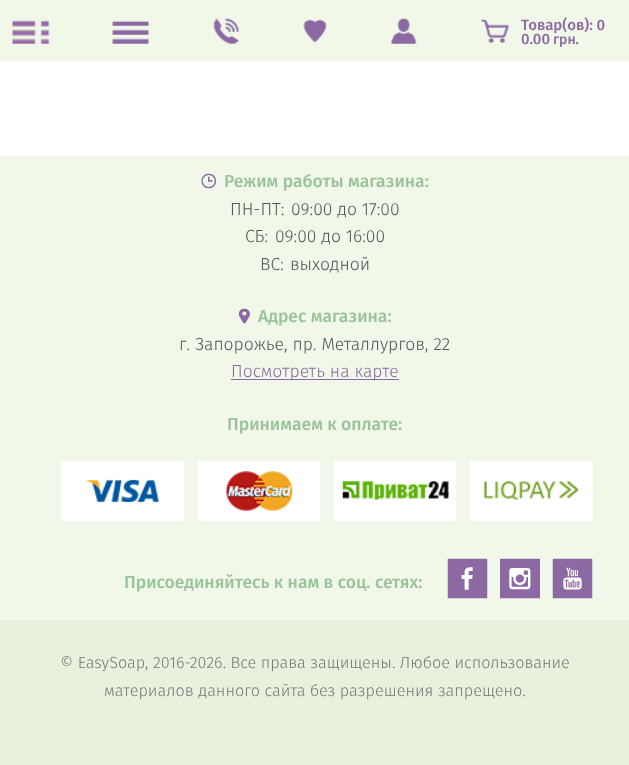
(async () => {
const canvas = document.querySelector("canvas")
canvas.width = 629
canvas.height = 765
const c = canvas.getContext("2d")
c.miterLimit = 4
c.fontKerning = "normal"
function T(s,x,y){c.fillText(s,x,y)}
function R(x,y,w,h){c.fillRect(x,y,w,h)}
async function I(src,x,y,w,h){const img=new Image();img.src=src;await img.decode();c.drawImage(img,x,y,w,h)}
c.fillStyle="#fff"
R(0,0,629,765)
c.fillStyle="#f1f8e9"
R(0,0,629,61)
await I("1.png",12,20,38,24)
await I("2.png",112,20,37,24)
await I("3.png",213,18,26,26)
await I("4.png",303,19,24,24)
await I("5.png",391,18,26,26)
await I("6.png",481,19,28,24)
c.font="500 15px Fira Sans"
c.fillStyle="#8c69a3"
T("Товар(ов): 0",521,30)
T("0.00",521,44)
c.font="500 14px Fira Sans"
T("грн.",553,44)
c.fillStyle="#f1f8e9"
R(0,156,629,464)
await I("7.png",201,173,16,16)
c.font="500 17.5px Fira Sans"
c.fillStyle="#9ac39b"
T("Режим работы магазина:",224,187)
c.font="300 17.5px Fira Sans"
c.fillStyle="#555"
T("ПН-ПТ:",230,215)
T("09:00 до 17:00",291,215)
T("СБ:",245,242)
T("09:00 до 16:00",275,242)
T("ВС:",260,270)
T("выходной",290,270)
await I("8.png",238,308,12,16)
c.font="500 17.5px Fira Sans"
c.fillStyle="#9ac39b"
T("Адрес магазина:",258,322)
c.font="300 17.5px Fira Sans"
c.fillStyle="#555"
T("г. Запорожье, пр. Металлургов, 22",179,350)
c.fillStyle="#8c69a3"
R(231,379,168,1)
T("Посмотреть на карте",231,377)
c.font="500 17.5px Fira Sans"
c.fillStyle="#9ac39b"
T("Принимаем к оплате:",227,430)
c.fillStyle="#fff"
R(61,461,123,60)
await I("9.png",86,479,73,24)
R(198,461,122,60)
await I("10.png",226,471,67,40)
R(334,461,122,60)
await I("11.png",342,481,107,19)
R(470,461,123,60)
await I("12.png",484,481,95,19)
c.fillStyle="#9ac39b"
T("Присоединяйтесь к нам в соц. сетях:",124,588)
await I("13.png",447,558,41,41)
await I("14.png",500,558,40,41)
await I("15.png",552,558,41,41)
c.fillStyle="#e8f1de"
R(0,620,629,145)
c.font="300 16.25px Fira Sans"
c.fillStyle="#777"
T("© EasySoap, 2016-2026. Все права защищены. Любое использование",60,668)
T("материалов данного сайта без разрешения запрещено.",104,696)
})()
